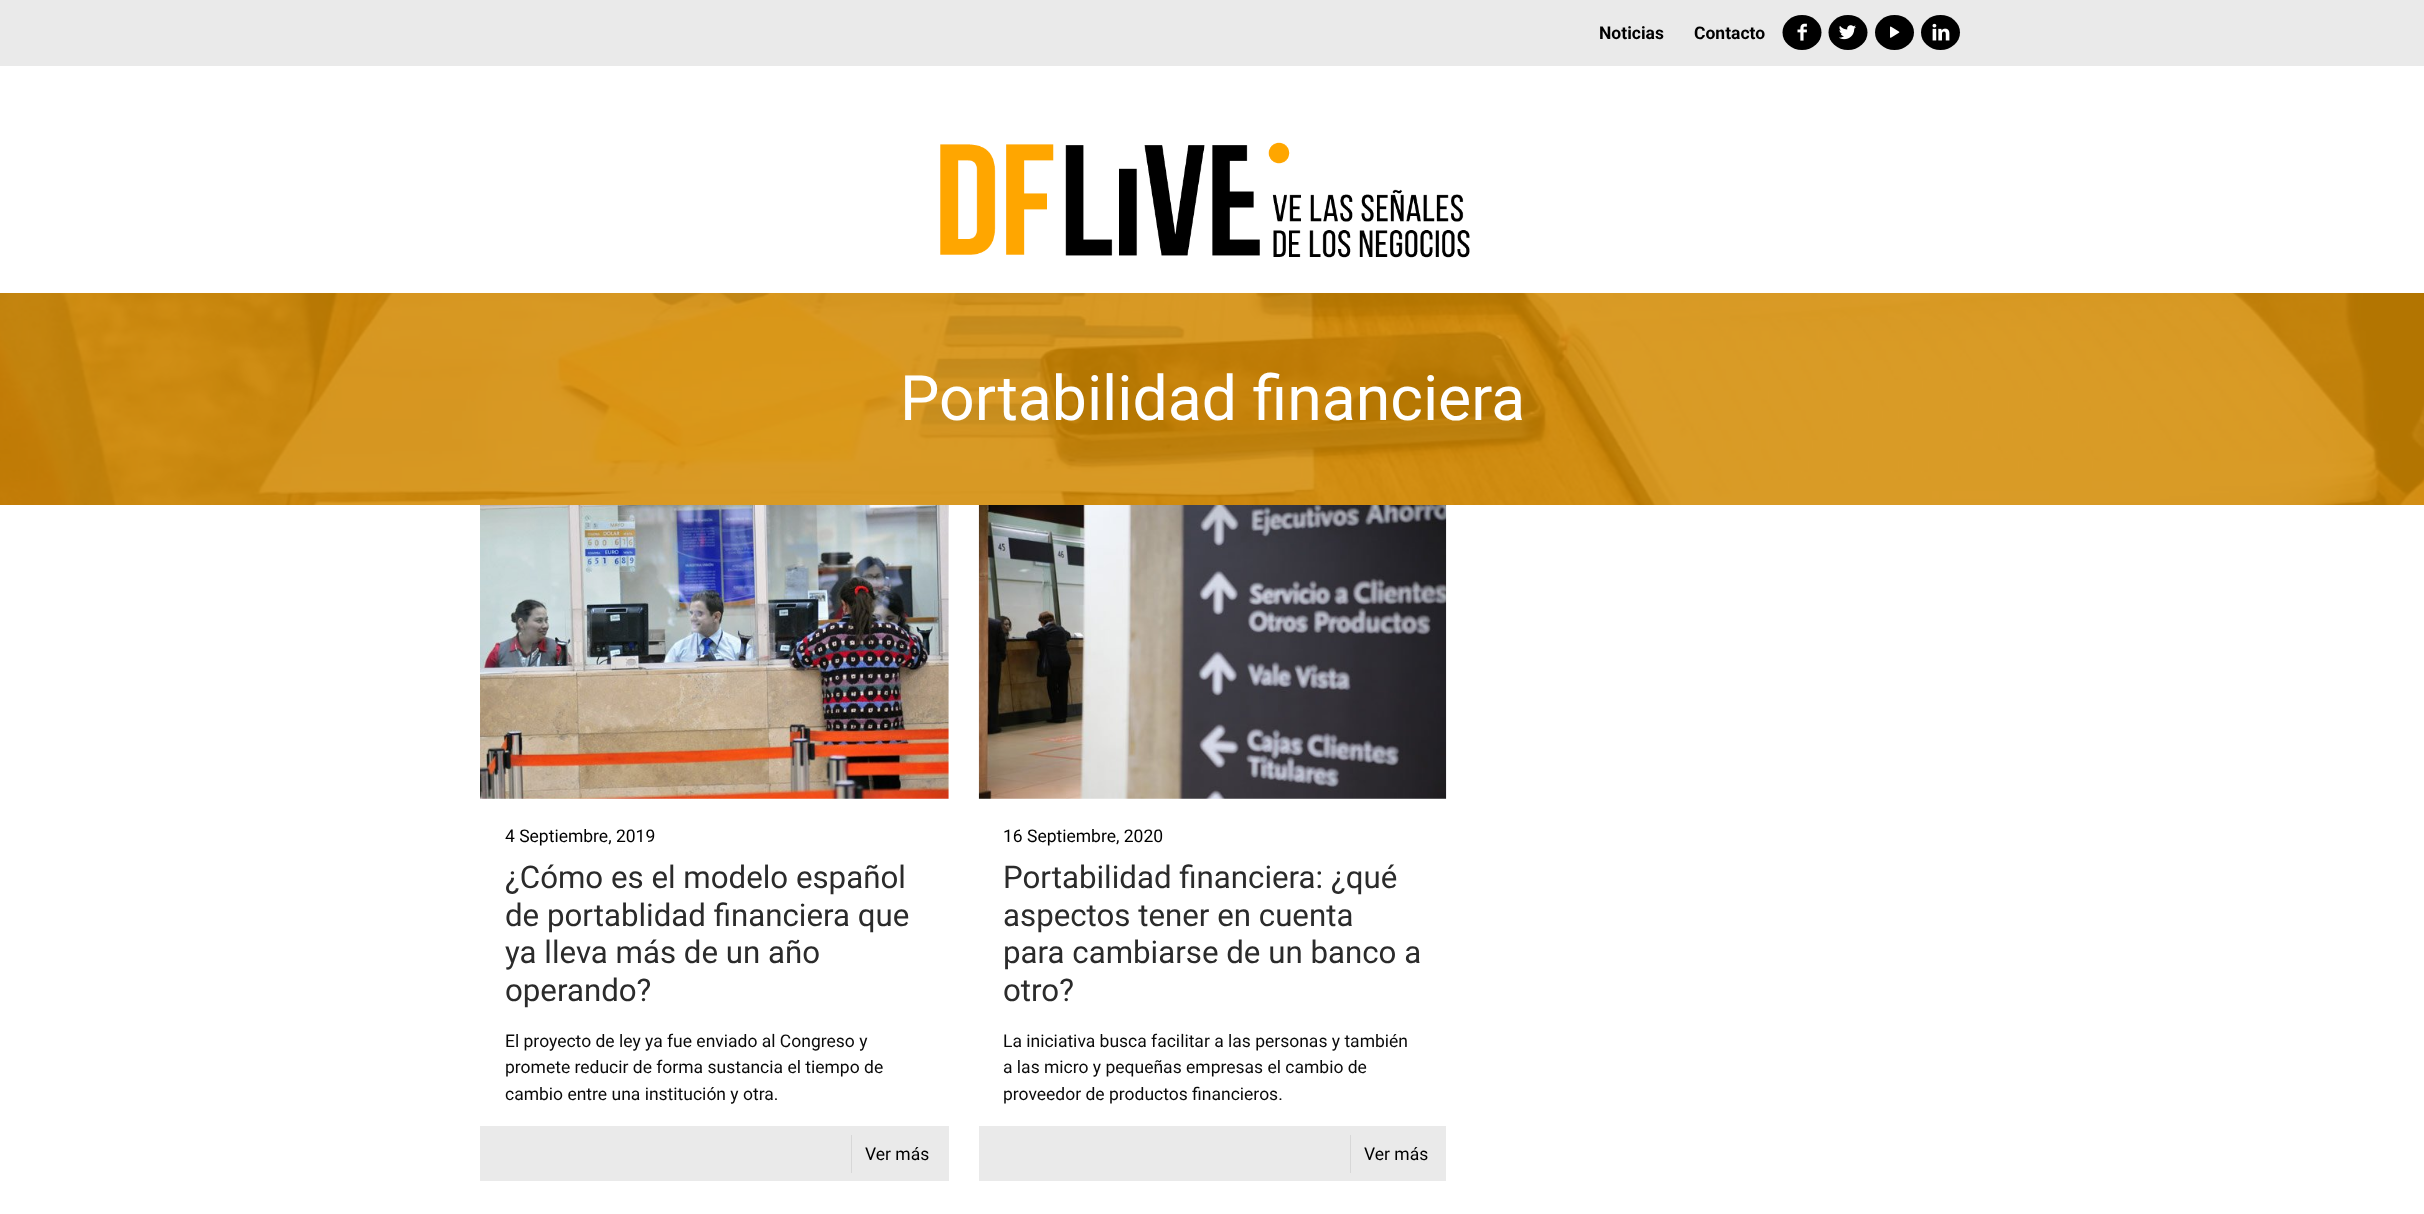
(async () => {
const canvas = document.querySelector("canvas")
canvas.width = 2424
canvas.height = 1214
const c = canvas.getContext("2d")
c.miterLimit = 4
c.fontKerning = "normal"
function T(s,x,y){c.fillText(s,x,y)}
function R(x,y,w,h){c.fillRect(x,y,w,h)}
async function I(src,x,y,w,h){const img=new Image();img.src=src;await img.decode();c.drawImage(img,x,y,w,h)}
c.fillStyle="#fff"
R(0,0,2424,1214)
await I("1.png",0,293,2424,212)
c.fillStyle="#eaeaea"
R(0,0,2424,66)
c.font="bold 17.5px Roboto"
c.fillStyle="#000"
T("Noticias",1599,39)
T("Contacto",1694,39)
c.beginPath()
c.ellipse(1802,32.5,19.5,17.5,0,0,7)
c.fill()
await I("2.png",1797,23,10,18)
c.beginPath()
c.ellipse(1848,32.5,19.5,17.5,0,0,7)
c.fill()
await I("3.png",1839,25,17,15)
c.beginPath()
c.ellipse(1894.5,32.5,19.5,17.5,0,0,7)
c.fill()
await I("4.png",1890,26,10,12)
c.beginPath()
c.ellipse(1940.5,32.5,19.5,17.5,0,0,7)
c.fill()
await I("5.png",1932,23,18,18)
await I("6.png",940,142,530,116)
c.fillStyle="#ffa601b3"
R(0,293,2424,212)
c.font="62.5px Roboto"
c.fillStyle="#fff"
T("Portabilidad financiera",900,420)
await I("7.png",480,505,469,294)
c.font="17.5px Roboto"
c.fillStyle="#000"
T("4 Septiembre, 2019",505,842)
c.font="31.25px Roboto"
c.fillStyle="#2b2b2b"
T("¿Cómo es el modelo español",505,888)
T("de portablidad financiera que",505,926)
T("ya lleva más de un año",505,963)
T("operando?",505,1001)
c.font="17.5px Roboto"
c.fillStyle="#0a0a0a"
T("El proyecto de ley ya fue enviado al Congreso y",505,1047)
T("promete reducir de forma sustancia el tiempo de",505,1073)
T("cambio entre una institución y otra.",505,1100)
c.fillStyle="#eaeaea"
R(480,1126,469,55)
c.fillStyle="#d7d7d7"
R(851,1135,1,38)
c.fillStyle="#000"
T("Ver más",865,1160)
await I("8.png",978,505,469,294)
T("16 Septiembre, 2020",1003,842)
c.font="31.25px Roboto"
c.fillStyle="#2b2b2b"
T("Portabilidad financiera: ¿qué",1003,888)
T("aspectos tener en cuenta",1003,926)
T("para cambiarse de un banco a",1003,963)
T("otro?",1003,1001)
c.font="17.5px Roboto"
c.fillStyle="#0a0a0a"
T("La iniciativa busca facilitar a las personas y también",1003,1047)
T("a las micro y pequeñas empresas el cambio de",1003,1073)
T("proveedor de productos financieros.",1003,1100)
c.fillStyle="#eaeaea"
R(979,1126,467,55)
c.fillStyle="#d7d7d7"
R(1350,1135,1,38)
c.fillStyle="#000"
T("Ver más",1364,1160)
})()
